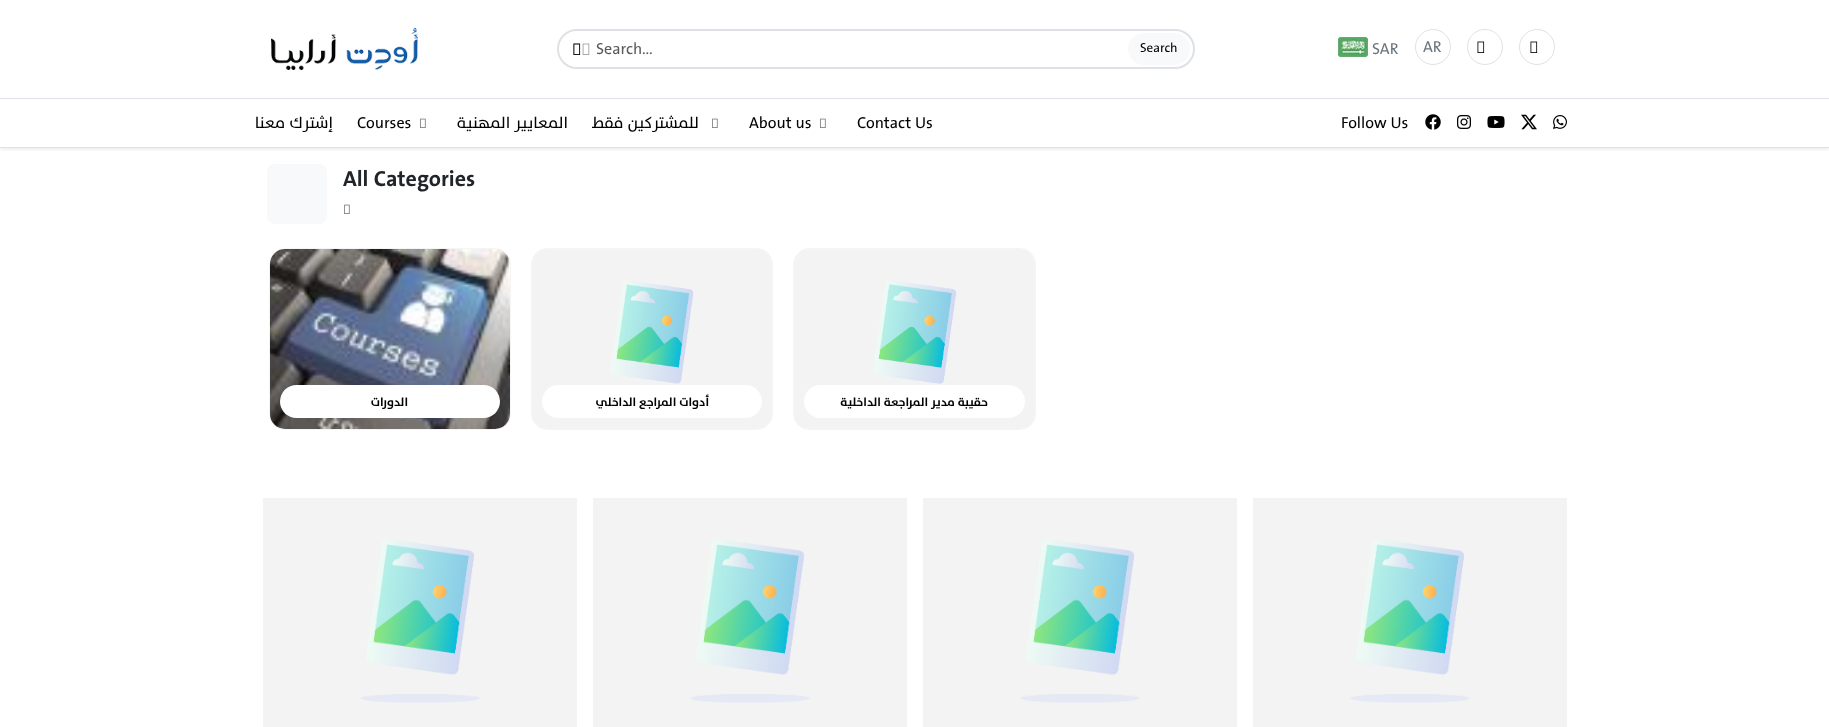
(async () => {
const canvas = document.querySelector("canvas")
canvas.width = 1829
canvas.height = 727
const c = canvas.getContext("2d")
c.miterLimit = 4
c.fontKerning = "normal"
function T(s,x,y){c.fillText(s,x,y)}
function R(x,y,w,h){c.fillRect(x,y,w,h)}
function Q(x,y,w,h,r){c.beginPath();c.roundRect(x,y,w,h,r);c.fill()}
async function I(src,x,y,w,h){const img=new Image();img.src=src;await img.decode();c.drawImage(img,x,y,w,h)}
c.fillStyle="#fff"
R(0,0,1829,727)
c.save()
c.beginPath()
c.rect(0,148,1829,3)
c.clip()
c.fillStyle="#00000012"
c.filter="blur(2px)"
c.beginPath()
c.rect(0,2,1829,148)
c.fill()
c.filter="none"
c.restore()
c.fillStyle="#dee2e6"
R(0,98,1829,1)
c.beginPath()
c.arc(1537,47,17.5,0,7)
c.strokeStyle="#dee2e6"
c.stroke()
await I("1.png",1530,41,8,12)
c.beginPath()
c.arc(1485,47,17.5,0,7)
c.stroke()
await I("1.png",1477,41,8,12)
c.beginPath()
c.arc(1433,47,17.5,0,7)
c.stroke()
c.font="16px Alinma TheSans"
c.fillStyle="#6c757d"
T("AR",1423,52)
T("SAR",1372,54)
await I("2.png",1338,37,30,20)
c.beginPath()
c.roundRect(558,30,636,38,19)
c.lineWidth=2
c.stroke()
c.fillStyle="#f8f9fa"
Q(1128,33,62,32,16)
c.font="13px Alinma TheSans"
c.fillStyle="#000"
T("Search",1140,52)
c.font="16px Alinma TheSans"
c.fillStyle="#595c5f"
T("Search...",596,54)
await I("1.png",573,43,8,12)
await I("3.png",573,43,17,12)
await I("4.png",271,28,147,42)
c.fillStyle="#dee2e6"
R(0,147,1829,1)
await I("5.png",1553,115,14,14)
await I("6.png",1521,114,16,16)
await I("7.png",1487,116,18,12)
await I("8.png",1457,115,14,14)
await I("9.png",1425,114,16,16)
c.fillStyle="#000"
T("Follow Us",1341,128)
T("Contact Us",857,128)
await I("10.png",820,118,6,10)
T("About us",749,128)
await I("10.png",712,118,6,10)
c.direction="rtl"
T("للمشتركين فقط",699,128)
T("المعايير المهنية",568,128)
await I("10.png",420,118,6,10)
c.direction="ltr"
T("Courses",357,128)
c.direction="rtl"
T("إشترك معنا",333,128)
c.direction="ltr"
c.font="bold 22px Alinma TheSans"
c.fillStyle="#212529"
T("All Categories",343,186)
await I("10.png",344,204,6,10)
c.fillStyle="#f8f9fa"
Q(267,164,60,60,8)
c.beginPath()
c.roundRect(793.5,248.5,242,181,15.5)
c.strokeStyle="#f5f5f5"
c.lineWidth=1
c.stroke()
await I("11.png",794,249,241,180)
c.fillStyle="#fff"
Q(804,385,221,33,16.5)
c.direction="rtl"
c.font="bold 12px Alinma TheSans"
c.fillStyle="#000"
T("حقيبة مدير المراجعة الداخلية",988,406)
c.beginPath()
c.roundRect(531.5,248.5,241,181,15.5)
c.stroke()
await I("12.png",532,249,240,180)
c.fillStyle="#fff"
Q(542,385,220,33,16.5)
c.fillStyle="#000"
T("أدوات المراجع الداخلي",709,406)
c.beginPath()
c.roundRect(269.5,248.5,241,181,15.5)
c.stroke()
await I("13.png",270,249,240,180)
c.fillStyle="#fff"
Q(280,385,220,33,16.5)
c.fillStyle="#000"
T("الدورات",408,406)
await I("14.png",1253,498,314,229)
await I("14.png",923,498,314,229)
await I("14.png",593,498,314,229)
await I("14.png",263,498,314,229)
})()
